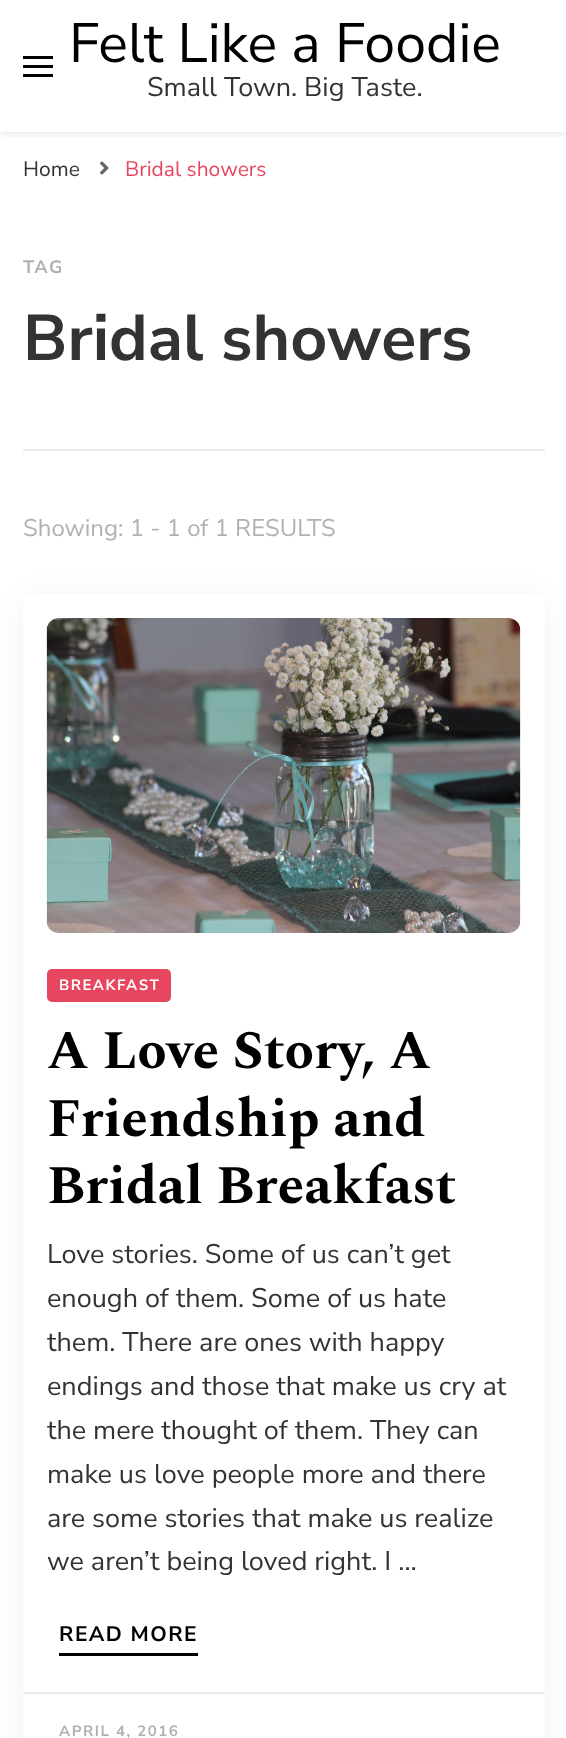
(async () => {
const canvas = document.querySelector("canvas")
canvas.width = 566
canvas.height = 1738
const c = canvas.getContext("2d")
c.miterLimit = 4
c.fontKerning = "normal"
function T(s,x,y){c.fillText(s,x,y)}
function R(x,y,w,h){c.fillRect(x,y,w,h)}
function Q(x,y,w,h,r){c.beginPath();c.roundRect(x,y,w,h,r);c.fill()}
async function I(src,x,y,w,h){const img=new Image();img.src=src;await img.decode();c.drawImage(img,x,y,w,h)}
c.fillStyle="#fff"
R(0,0,566,1738)
c.save()
c.beginPath()
c.rect(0,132,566,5)
c.clip()
c.fillStyle="#0000001a"
c.filter="blur(4px)"
c.beginPath()
c.rect(0,2,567,132)
c.fill()
c.filter="none"
c.restore()
c.fillStyle="#000"
R(23,56,30,3)
R(23,65,30,3)
R(23,74,30,3)
c.font="55.5px Nunito Sans"
T("Felt Like a Foodie",69,62)
c.font="27px Nunito Sans"
c.fillStyle="#333"
T("Small Town. Big Taste.",147,96)
c.font="21px Nunito Sans"
T("Home",23,176)
await I("1.png",100,161,9,14)
c.fillStyle="#e7475e"
T("Bridal showers",125,176)
c.fillStyle="#ebebeb"
R(23,449,522,2)
c.letterSpacing="1.5px"
c.font="bold 18px Nunito Sans"
c.fillStyle="#b1b1b2"
T("TAG",23,273)
c.letterSpacing="0px"
c.font="bold 64.5px Nunito Sans"
c.fillStyle="#333"
T("Bridal showers",23,360)
c.font="24px Nunito Sans"
c.fillStyle="#b1b1b2"
T("Showing: 1 - 1 of 1 RESULTS",23,536)
c.fillStyle="#0000000d"
c.filter="blur(15px)"
c.beginPath()
c.roundRect(23,597,522,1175,12)
c.fill()
c.filter="none"
c.fillStyle="#fff"
Q(23,594,522,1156,12)
await I("2.png",46,618,475,315)
c.fillStyle="#e7475e"
Q(47,969,124,33,5)
c.letterSpacing="1.5px"
c.font="bold 15px Nunito Sans"
c.fillStyle="#fff"
T("BREAKFAST",59,990)
c.letterSpacing="0px"
c.font="bold 54px Spectral"
c.fillStyle="#000"
T("A Love Story, A",47,1068)
T("Friendship and",47,1136)
T("Bridal Breakfast",47,1203)
c.font="27px Nunito Sans"
c.fillStyle="#333"
T("Love stories. Some of us can’t get",47,1263)
T("enough of them. Some of us hate",47,1307)
T("them. There are ones with happy",47,1351)
T("endings and those that make us cry at",47,1395)
T("the mere thought of them. They can",47,1439)
T("make us love people more and there",47,1483)
T("are some stories that make us realize",47,1527)
T("we aren’t being loved right. I …",47,1570)
c.fillStyle="#000"
R(59,1653,139,3)
c.letterSpacing="1.5px"
c.font="bold 21px Nunito Sans"
T("READ MORE",59,1641)
c.fillStyle="#ebebeb"
R(23,1692,522,2)
c.font="bold 15px Nunito Sans"
c.fillStyle="#b1b1b2"
T("APRIL 4, 2016",59,1736)
})()
